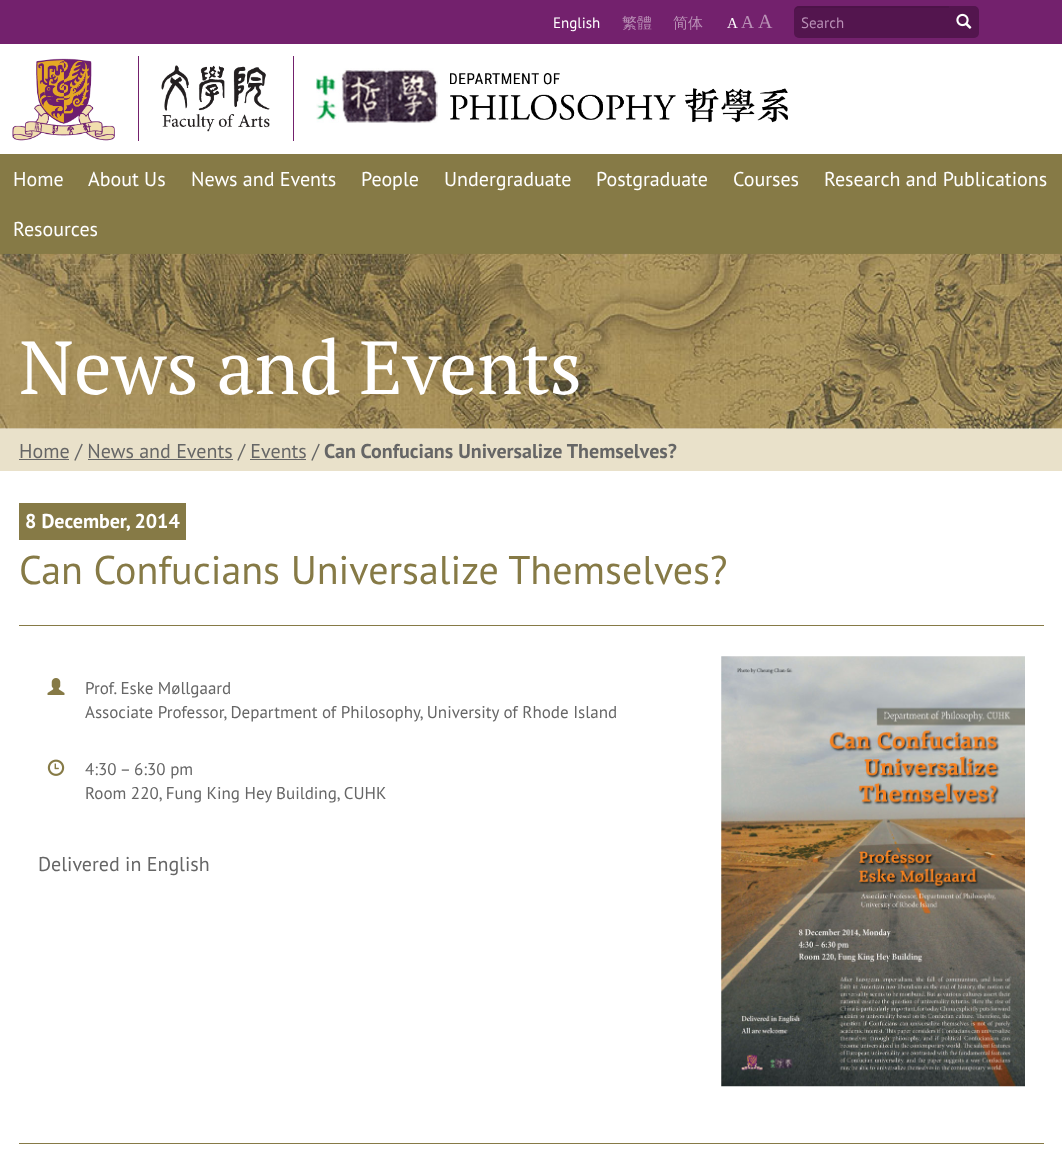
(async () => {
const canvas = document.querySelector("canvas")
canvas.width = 1062
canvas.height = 1157
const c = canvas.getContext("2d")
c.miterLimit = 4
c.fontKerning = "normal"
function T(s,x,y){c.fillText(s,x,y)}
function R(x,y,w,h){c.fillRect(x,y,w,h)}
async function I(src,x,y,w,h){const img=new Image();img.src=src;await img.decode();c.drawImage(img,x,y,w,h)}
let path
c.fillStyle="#fff"
R(0,0,1062,1157)
c.fillStyle="#73216d"
R(0,0,1062,44)
c.font="15px PT Sans"
c.fillStyle="#fff"
T("English",553,28)
c.font="500 15px WenQuanYi Zen Hei"
c.fillStyle="#b990b6"
T("繁體",622,28)
T("简体",673,28)
c.font="15px Liberation Serif"
c.fillStyle="#fff"
T("A",727,28)
c.font="18px Liberation Serif"
c.fillStyle="#b990b6"
T("A",741,28)
c.font="20px Liberation Serif"
T("A",758,28)
c.fillStyle="#53154e"
c.beginPath()
c.roundRect(794,6,156,32,[5,0,0,5])
c.fill()
c.fillStyle="#00000012"
path = new Path2D("M799 8h151v-2h-151c-3 0-5 2-5 5v1c0-2 2-4 5-4z")
c.fill(path)
c.font="15px PT Sans"
c.fillStyle="#b990b6"
T("Search",801,28)
c.fillStyle="#53154e"
c.beginPath()
c.roundRect(949,6,30,32,[0,5,5,0])
c.fill()
await I("1.png",956,13,16,16)
c.fillStyle="#73216d"
R(138,56,1,85)
await I("2.png",12,58,103,83)
R(293,56,1,85)
await I("3.png",161,65,109,67)
await I("4.png",316,68,122,55)
await I("5.png",450,73,338,50)
c.fillStyle="#867a46"
R(0,154,1062,100)
c.font="20px PT Sans"
c.fillStyle="#fff"
T("Home",13,186)
T("About Us",88,186)
T("News and Events",191,186)
T("People",361,186)
T("Undergraduate",444,186)
T("Postgraduate",596,186)
T("Courses",733,186)
T("Research and Publications",824,186)
T("Resources",13,236)
await I("6.png",0,253,1062,176)
c.font="75px PT Serif"
T("News and Events",19,394)
c.fillStyle="#e9e1ca"
R(0,429,1062,42)
c.fillStyle="#666"
R(19,459,50,1)
c.font="20px PT Sans"
T("Home / News and Events / Events /",19,458)
c.font="bold 20px PT Sans"
T("Can Confucians Universalize Themselves?",324,458)
R(88,459,145,1)
R(250,459,56,1)
c.fillStyle="#867a46"
R(19,503,167,37)
c.fillStyle="#fff"
T("8 December, 2014",25,528)
c.font="40px PT Sans"
c.fillStyle="#867a46"
T("Can Confucians Universalize Themselves?",19,584)
R(19,625,1025,1)
R(19,1143,1025,1)
await I("7.png",47,678,18,17)
c.font="17px PT Sans"
c.fillStyle="#666"
T("Prof. Eske Møllgaard",85,694)
T("Associate Professor, Department of Philosophy, University of Rhode Island",85,718)
await I("8.png",47,759,18,17)
T("4:30 – 6:30 pm",85,775)
T("Room 220, Fung King Hey Building, CUHK",85,799)
c.font="20px PT Sans"
T("Delivered in English",38,871)
await I("9.png",721,656,304,431)
})()
